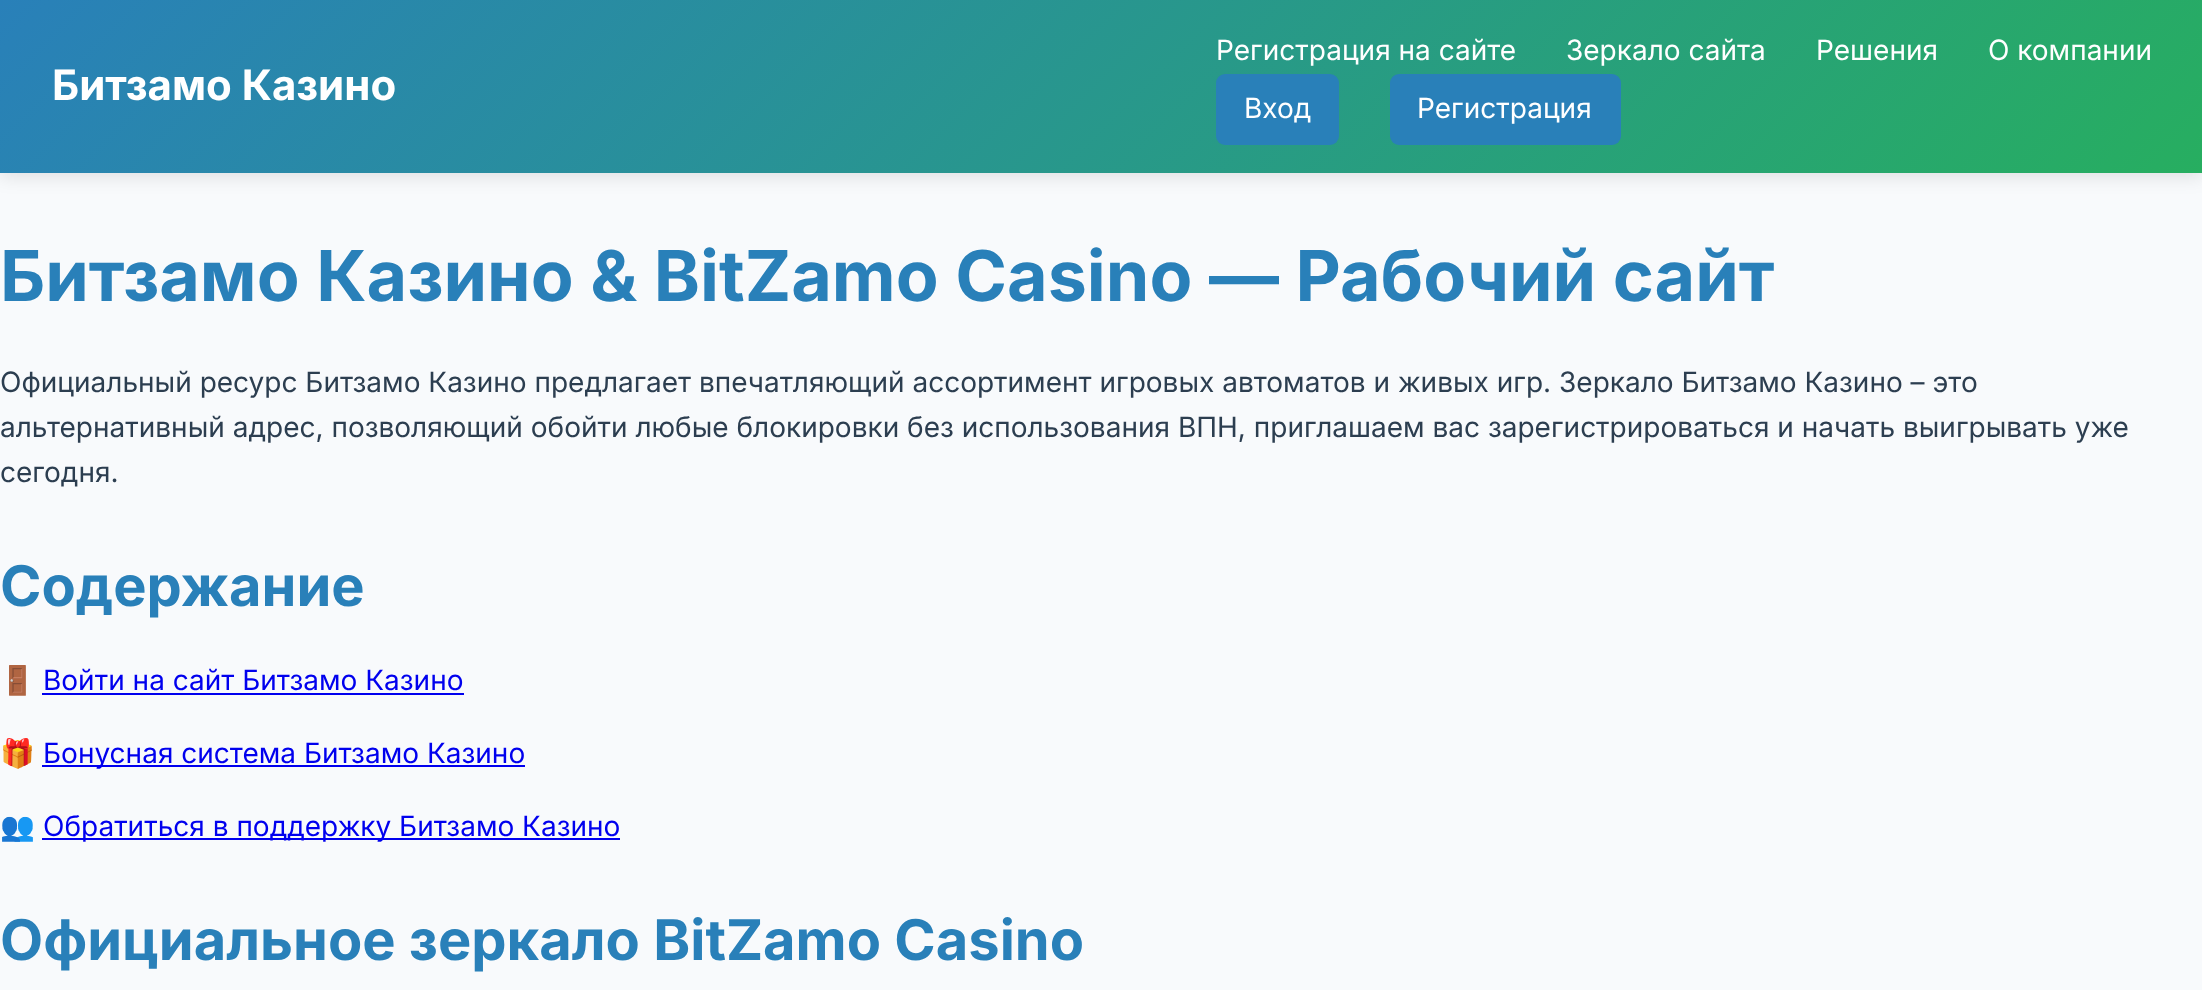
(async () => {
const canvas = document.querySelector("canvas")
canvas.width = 2202
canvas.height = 990
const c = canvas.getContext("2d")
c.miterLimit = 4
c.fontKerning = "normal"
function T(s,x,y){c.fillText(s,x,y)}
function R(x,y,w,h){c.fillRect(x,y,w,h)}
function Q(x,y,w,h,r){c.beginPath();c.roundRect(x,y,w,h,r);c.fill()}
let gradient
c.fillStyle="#f8fafc"
R(0,0,2202,990)
c.fillStyle="#0000001a"
c.filter="blur(9px)"
c.beginPath()
c.rect(0,4,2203,173)
c.fill()
c.filter="none"
gradient = c.createLinearGradient(507,-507,1696,681)
gradient.addColorStop(0,"#2980b9")
gradient.addColorStop(1,"#27ae60")
c.fillStyle = gradient
R(0,0,2202,173)
c.font="bold 42px Inter"
c.fillStyle="#fff"
T("Битзамо Казино",52,100)
c.font="28px Inter"
T("Регистрация на сайте",1216,60)
T("Зеркало сайта",1566,60)
T("Решения",1816,60)
T("О компании",1988,60)
c.fillStyle="#2980b9"
Q(1216,74,123,71,9)
c.fillStyle="#fff"
T("Вход",1244,118)
c.fillStyle="#2980b9"
Q(1390,74,231,71,9)
c.fillStyle="#fff"
T("Регистрация",1417,118)
c.font="bold 70px Inter"
c.fillStyle="#2980b9"
T("Битзамо Казино & BitZamo Casino — Рабочий сайт",0,301)
c.font="28px Inter"
c.fillStyle="#2c3e50"
T("Официальный ресурс Битзамо Казино предлагает впечатляющий ассортимент игровых автоматов и живых игр. Зеркало Битзамо Казино – это",0,392)
T("альтернативный адрес, позволяющий обойти любые блокировки без использования ВПН, приглашаем вас зарегистрироваться и начать выигрывать уже",0,437)
T("сегодня.",0,482)
c.font="bold 56px Inter"
c.fillStyle="#2980b9"
T("Содержание",0,606)
c.font="28px Noto Color Emoji"
c.fillStyle="#2c3e50"
T("🚪",0,690)
c.font="28px Inter"
c.fillStyle="#00e"
T("Войти на сайт Битзамо Казино",43,690)
R(42,693,422,2)
c.font="28px Noto Color Emoji"
c.fillStyle="#2c3e50"
T("🎁",0,763)
c.fillStyle="#00e"
R(42,765,483,2)
c.font="28px Inter"
T("Бонусная система Битзамо Казино",43,763)
c.font="28px Noto Color Emoji"
c.fillStyle="#2c3e50"
T("👥",0,836)
c.fillStyle="#00e"
R(42,838,578,2)
c.font="28px Inter"
T("Обратиться в поддержку Битзамо Казино",43,836)
c.font="bold 56px Inter"
c.fillStyle="#2980b9"
T("Официальное зеркало BitZamo Casino",0,960)
})()
